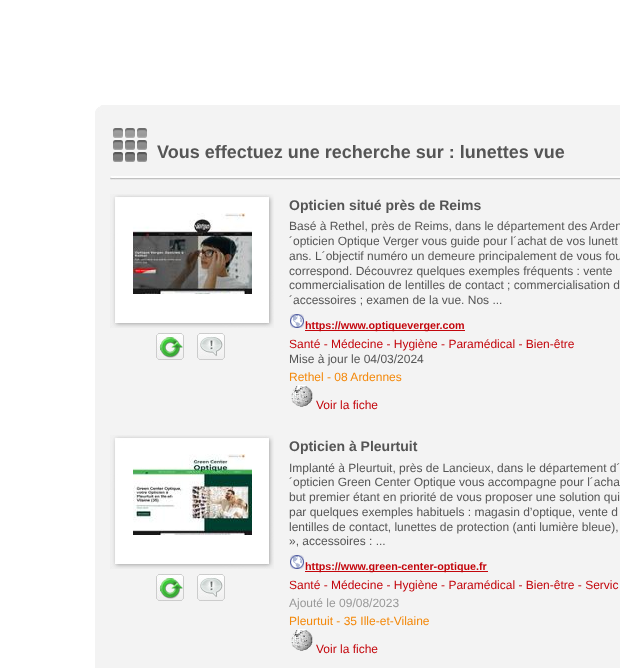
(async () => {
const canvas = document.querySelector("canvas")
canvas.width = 620
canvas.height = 668
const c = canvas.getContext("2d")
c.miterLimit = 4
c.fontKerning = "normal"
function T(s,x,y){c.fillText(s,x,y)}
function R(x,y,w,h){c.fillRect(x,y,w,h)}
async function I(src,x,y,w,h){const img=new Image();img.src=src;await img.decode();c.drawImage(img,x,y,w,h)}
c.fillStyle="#fff"
R(0,0,620,668)
await I("1.png",95,105,525,8)
c.fillStyle="#f3f3f3"
R(95,113,525,555)
await I("2.png",113,128,34,34)
c.font="bold 18px Liberation Sans"
c.fillStyle="#555"
T("Vous effectuez une recherche sur : lunettes vue",157,158)
await I("3.png",110,176,510,4)
await I("4.png",110,194,164,134)
await I("5.png",133,213,119,81)
await I("6.png",156,333,28,27)
await I("7.png",197,333,28,27)
c.font="bold 14px Liberation Sans"
T("Opticien situé près de Reims",289,210)
c.font="12px Liberation Sans"
T("Basé à Rethel, près de Reims, dans le département des Arden",289,230)
T("´opticien Optique Verger vous guide pour l´achat de vos lunett",289,245)
T("ans. L´objectif numéro un demeure principalement de vous fou",289,260)
T("correspond. Découvrez quelques exemples fréquents : vente",289,275)
T("commercialisation de lentilles de contact ; commercialisation d",289,289)
T("´accessoires ; examen de la vue. Nos ...",289,304)
await I("8.png",290,314,14,14)
c.fillStyle="#c3060c"
R(305,330,160,1)
c.font="bold 10.75px Liberation Sans"
T("https://www.optiqueverger.com",305,329)
c.font="12px Liberation Sans"
T("Santé - Médecine - Hygiène - Paramédical - Bien-être",289,348)
c.fillStyle="#555"
T("Mise à jour le 04/03/2024",289,363)
c.fillStyle="#f3880a"
T("Rethel - 08 Ardennes",289,381)
await I("9.png",291,385,22,22)
c.fillStyle="#c3060c"
T("Voir la fiche",316,409)
await I("4.png",110,435,164,134)
await I("10.png",133,454,119,81)
await I("6.png",156,574,28,27)
await I("7.png",197,574,28,27)
c.font="bold 14px Liberation Sans"
c.fillStyle="#555"
T("Opticien à Pleurtuit",289,451)
c.font="12px Liberation Sans"
T("Implanté à Pleurtuit, près de Lancieux, dans le département d´",289,472)
T("´opticien Green Center Optique vous accompagne pour l´acha",289,486)
T("but premier étant en priorité de vous proposer une solution qui",289,501)
T("par quelques exemples habituels : magasin d’optique, vente d",289,516)
T("lentilles de contact, lunettes de protection (anti lumière bleue),",289,531)
T("», accessoires : ...",289,545)
await I("8.png",290,555,14,14)
c.fillStyle="#c3060c"
R(305,571,183,1)
c.font="bold 10.75px Liberation Sans"
T("https://www.green-center-optique.fr",305,570)
c.font="12px Liberation Sans"
T("Santé - Médecine - Hygiène - Paramédical - Bien-être - Servic",289,589)
c.fillStyle="#999"
T("Ajouté le 09/08/2023",289,607)
c.fillStyle="#f3880a"
T("Pleurtuit - 35 Ille-et-Vilaine",289,625)
await I("9.png",291,629,22,22)
c.fillStyle="#c3060c"
T("Voir la fiche",316,653)
})()
